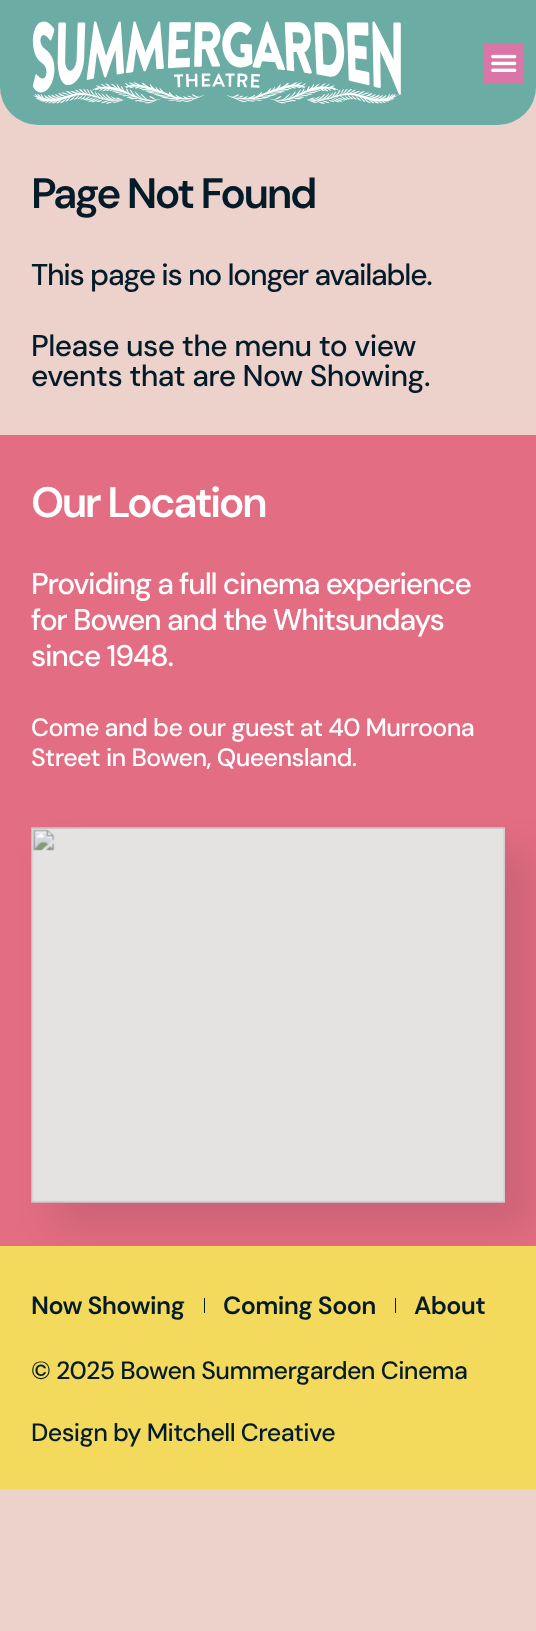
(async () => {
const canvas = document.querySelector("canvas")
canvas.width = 536
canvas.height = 1631
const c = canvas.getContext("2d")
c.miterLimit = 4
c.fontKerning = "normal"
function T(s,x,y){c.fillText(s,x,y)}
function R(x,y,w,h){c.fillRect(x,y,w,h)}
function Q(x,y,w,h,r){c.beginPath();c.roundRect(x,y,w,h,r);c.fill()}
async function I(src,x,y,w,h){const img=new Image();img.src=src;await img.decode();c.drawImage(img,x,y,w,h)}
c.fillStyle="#edd1cb"
R(0,0,536,1631)
c.fillStyle="#6baca5"
c.beginPath()
c.roundRect(0,0,536,125,[0,0,38,38])
c.fill()
await I("1.png",32,21,369,83)
c.fillStyle="#da76a7"
Q(483,43,41,41,4)
await I("2.png",491,54,26,18)
c.letterSpacing="-2.5px"
c.font="600 42.5px DM Sans"
c.fillStyle="#041c2a"
T("Page Not Found",31,208)
c.letterSpacing="-1.25px"
c.font="500 30px DM Sans"
T("This page is no longer available.",31,285)
c.letterSpacing="-0.6px"
T("Please use the menu to view",31,356)
T("events that are Now Showing.",31,386)
c.fillStyle="#e36d83"
R(0,435,536,811)
c.letterSpacing="-2.5px"
c.font="600 42.5px DM Sans"
c.fillStyle="#fff"
T("Our Location",31,517)
c.letterSpacing="-1.25px"
c.font="500 30px DM Sans"
T("Providing a full cinema experience",31,594)
T("for Bowen and the Whitsundays",31,630)
T("since 1948.",31,666)
c.letterSpacing="-0.6px"
c.font="500 25px DM Sans"
T("Come and be our guest at 40 Murroona",31,736)
T("Street in Bowen, Queensland.",31,766)
c.fillStyle="#0000001a"
c.filter="blur(19px)"
c.beginPath()
c.rect(56,853,474,375)
c.fill()
c.filter="none"
await I("3.png",31,827,474,376)
c.fillStyle="#f3d95c"
R(0,1246,536,243)
c.font="600 25px DM Sans"
c.fillStyle="#041c2a"
T("Now Showing",31,1314)
R(204,1298,1,15)
T("Coming Soon",223,1314)
R(395,1298,1,15)
T("About",414,1314)
c.font="500 25px DM Sans"
T("© 2025 Bowen Summergarden Cinema",31,1379)
T("Design by Mitchell Creative",31,1441)
})()
